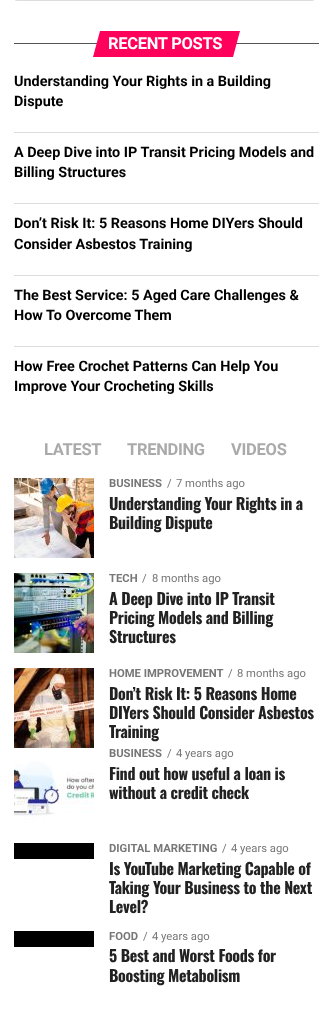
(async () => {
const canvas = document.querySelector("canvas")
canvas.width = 333
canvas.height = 1009
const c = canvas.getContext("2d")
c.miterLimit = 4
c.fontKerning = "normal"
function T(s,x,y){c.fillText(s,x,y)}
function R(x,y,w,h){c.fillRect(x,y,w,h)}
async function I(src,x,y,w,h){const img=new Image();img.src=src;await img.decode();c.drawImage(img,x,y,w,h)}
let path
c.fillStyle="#fff"
R(0,0,333,1009)
c.beginPath()
c.roundRect(14.5,-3.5,300,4,2.5)
c.strokeStyle="#ddd"
c.stroke()
c.fillStyle="#555"
R(14,43,305,1)
c.fillStyle="#ff005b"
path = new Path2D("M100 31h140l-7 26h-140z")
c.fill(path)
c.letterSpacing="-0.3px"
c.font="bold 16.5px Roboto"
c.fillStyle="#fff"
T("RECENT POSTS",108,49)
c.letterSpacing="0px"
c.font="bold 14.4px Roboto"
c.fillStyle="#000"
T("Understanding Your Rights in a Building",14,86)
T("Dispute",14,106)
c.fillStyle="#ddd"
R(14,132,305,1)
c.fillStyle="#000"
T("A Deep Dive into IP Transit Pricing Models and",14,157)
T("Billing Structures",14,177)
c.fillStyle="#ddd"
R(14,203,305,1)
c.fillStyle="#000"
T("Don’t Risk It: 5 Reasons Home DIYers Should",14,228)
T("Consider Asbestos Training",14,249)
c.fillStyle="#ddd"
R(14,275,305,1)
c.fillStyle="#000"
T("The Best Service: 5 Aged Care Challenges &",14,300)
T("How To Overcome Them",14,320)
c.fillStyle="#ddd"
R(14,346,305,1)
c.fillStyle="#000"
T("How Free Crochet Patterns Can Help You",14,371)
T("Improve Your Crocheting Skills",14,391)
c.letterSpacing="-0.3px"
c.font="bold 16.5px Roboto"
c.fillStyle="#aaa"
T("LATEST",44,455)
T("TRENDING",127,455)
c.letterSpacing="-0.25px"
T("VIDEOS",231,455)
await I("1.png",14,478,80,80)
c.letterSpacing="0px"
c.font="bold 11.25px Roboto"
c.fillStyle="#777"
T("BUSINESS",109,487)
c.font="11.25px Roboto"
T("/",167,487)
T("7 months ago",176,487)
c.letterSpacing="-0.3px"
c.font="bold 16px Oswald"
c.fillStyle="#222"
T("Understanding Your Rights in a",109,510)
T("Building Dispute",109,529)
await I("2.png",14,573,80,80)
c.letterSpacing="0px"
c.font="bold 11.25px Roboto"
c.fillStyle="#777"
T("TECH",109,582)
c.font="11.25px Roboto"
T("/",142,582)
T("8 months ago",152,582)
c.letterSpacing="-0.3px"
c.font="bold 16px Oswald"
c.fillStyle="#222"
T("A Deep Dive into IP Transit",109,605)
T("Pricing Models and Billing",109,624)
T("Structures",109,643)
await I("3.png",14,668,80,80)
c.letterSpacing="0px"
c.font="bold 11.25px Roboto"
c.fillStyle="#777"
T("HOME IMPROVEMENT",109,677)
c.font="11.25px Roboto"
T("/",228,677)
T("8 months ago",237,677)
c.letterSpacing="-0.3px"
c.font="bold 16px Oswald"
c.fillStyle="#222"
T("Don’t Risk It: 5 Reasons Home",109,700)
T("DIYers Should Consider Asbestos",109,719)
T("Training",109,738)
await I("4.png",14,748,80,80)
c.letterSpacing="0px"
c.font="bold 11.25px Roboto"
c.fillStyle="#777"
T("BUSINESS",109,757)
c.font="11.25px Roboto"
T("/",167,757)
T("4 years ago",176,757)
c.letterSpacing="-0.3px"
c.font="bold 16px Oswald"
c.fillStyle="#222"
T("Find out how useful a loan is",109,780)
T("without a credit check",109,799)
c.fillStyle="#000"
R(14,843,80,16)
c.letterSpacing="0px"
c.font="bold 11.25px Roboto"
c.fillStyle="#777"
T("DIGITAL MARKETING",109,852)
c.font="11.25px Roboto"
T("/",222,852)
T("4 years ago",231,852)
c.letterSpacing="-0.3px"
c.font="bold 16px Oswald"
c.fillStyle="#222"
T("Is YouTube Marketing Capable of",109,875)
T("Taking Your Business to the Next",109,894)
T("Level?",109,913)
c.fillStyle="#000"
R(14,931,80,16)
c.letterSpacing="0px"
c.font="bold 11.25px Roboto"
c.fillStyle="#777"
T("FOOD",109,940)
c.font="11.25px Roboto"
T("/",143,940)
T("4 years ago",152,940)
c.letterSpacing="-0.3px"
c.font="bold 16px Oswald"
c.fillStyle="#222"
T("5 Best and Worst Foods for",109,962)
T("Boosting Metabolism",109,982)
})()
